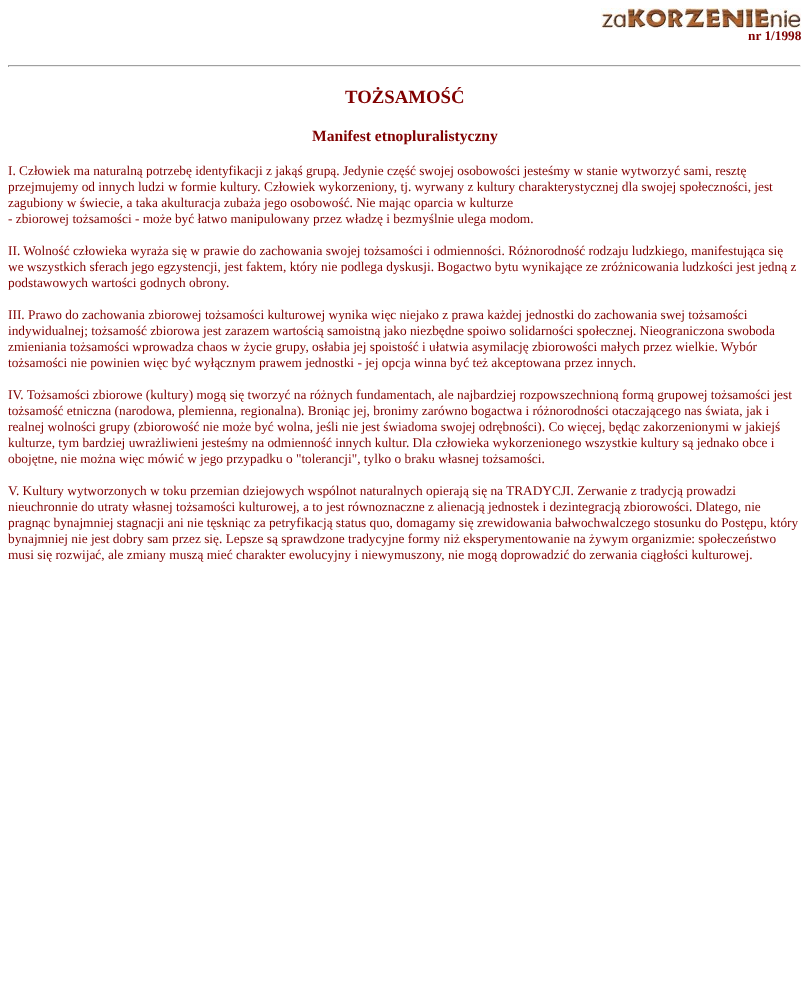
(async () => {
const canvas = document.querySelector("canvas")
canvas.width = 809
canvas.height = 988
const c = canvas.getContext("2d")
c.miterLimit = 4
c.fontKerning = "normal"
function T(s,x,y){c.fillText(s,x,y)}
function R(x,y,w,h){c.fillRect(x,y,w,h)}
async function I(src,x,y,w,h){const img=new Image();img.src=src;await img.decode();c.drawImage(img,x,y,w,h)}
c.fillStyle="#fff"
R(0,0,809,988)
await I("1.png",601,8,200,20)
c.font="bold 13.33px Liberation Serif"
c.fillStyle="#800000"
T("nr 1/1998",748,40)
c.fillStyle="#9f9f9f"
R(8,65,793,1)
c.fillStyle="#eee"
R(800,65,1,2)
R(8,66,793,1)
c.fillStyle="#9f9f9f"
R(8,65,1,2)
c.font="bold 18.75px Liberation Serif"
c.fillStyle="#800000"
T("TOŻSAMOŚĆ",345,103)
c.font="bold 15.6px Liberation Serif"
T("Manifest etnopluralistyczny",312,141)
c.font="13.33px Liberation Serif"
T("I. Człowiek ma naturalną potrzebę identyfikacji z jakąś grupą. Jedynie część swojej osobowości jesteśmy w stanie wytworzyć sami, resztę",8,175)
T("przejmujemy od innych ludzi w formie kultury. Człowiek wykorzeniony, tj. wyrwany z kultury charakterystycznej dla swojej społeczności, jest",8,191)
T("zagubiony w świecie, a taka akulturacja zubaża jego osobowość. Nie mając oparcia w kulturze",8,207)
T("- zbiorowej tożsamości - może być łatwo manipulowany przez władzę i bezmyślnie ulega modom.",8,223)
T("II. Wolność człowieka wyraża się w prawie do zachowania swojej tożsamości i odmienności. Różnorodność rodzaju ludzkiego, manifestująca się",8,255)
T("we wszystkich sferach jego egzystencji, jest faktem, który nie podlega dyskusji. Bogactwo bytu wynikające ze zróżnicowania ludzkości jest jedną z",8,271)
T("podstawowych wartości godnych obrony.",8,287)
T("III. Prawo do zachowania zbiorowej tożsamości kulturowej wynika więc niejako z prawa każdej jednostki do zachowania swej tożsamości",8,319)
T("indywidualnej; tożsamość zbiorowa jest zarazem wartością samoistną jako niezbędne spoiwo solidarności społecznej. Nieograniczona swoboda",8,335)
T("zmieniania tożsamości wprowadza chaos w życie grupy, osłabia jej spoistość i ułatwia asymilację zbiorowości małych przez wielkie. Wybór",8,351)
T("tożsamości nie powinien więc być wyłącznym prawem jednostki - jej opcja winna być też akceptowana przez innych.",8,367)
T("IV. Tożsamości zbiorowe (kultury) mogą się tworzyć na różnych fundamentach, ale najbardziej rozpowszechnioną formą grupowej tożsamości jest",8,399)
T("tożsamość etniczna (narodowa, plemienna, regionalna). Broniąc jej, bronimy zarówno bogactwa i różnorodności otaczającego nas świata, jak i",8,415)
T("realnej wolności grupy (zbiorowość nie może być wolna, jeśli nie jest świadoma swojej odrębności). Co więcej, będąc zakorzenionymi w jakiejś",8,431)
T("kulturze, tym bardziej uwrażliwieni jesteśmy na odmienność innych kultur. Dla człowieka wykorzenionego wszystkie kultury są jednako obce i",8,447)
T("obojętne, nie można więc mówić w jego przypadku o \"tolerancji\", tylko o braku własnej tożsamości.",8,463)
T("V. Kultury wytworzonych w toku przemian dziejowych wspólnot naturalnych opierają się na TRADYCJI. Zerwanie z tradycją prowadzi",8,495)
T("nieuchronnie do utraty własnej tożsamości kulturowej, a to jest równoznaczne z alienacją jednostek i dezintegracją zbiorowości. Dlatego, nie",8,511)
T("pragnąc bynajmniej stagnacji ani nie tęskniąc za petryfikacją status quo, domagamy się zrewidowania bałwochwalczego stosunku do Postępu, który",8,527)
T("bynajmniej nie jest dobry sam przez się. Lepsze są sprawdzone tradycyjne formy niż eksperymentowanie na żywym organizmie: społeczeństwo",8,543)
T("musi się rozwijać, ale zmiany muszą mieć charakter ewolucyjny i niewymuszony, nie mogą doprowadzić do zerwania ciągłości kulturowej.",8,559)
})()
